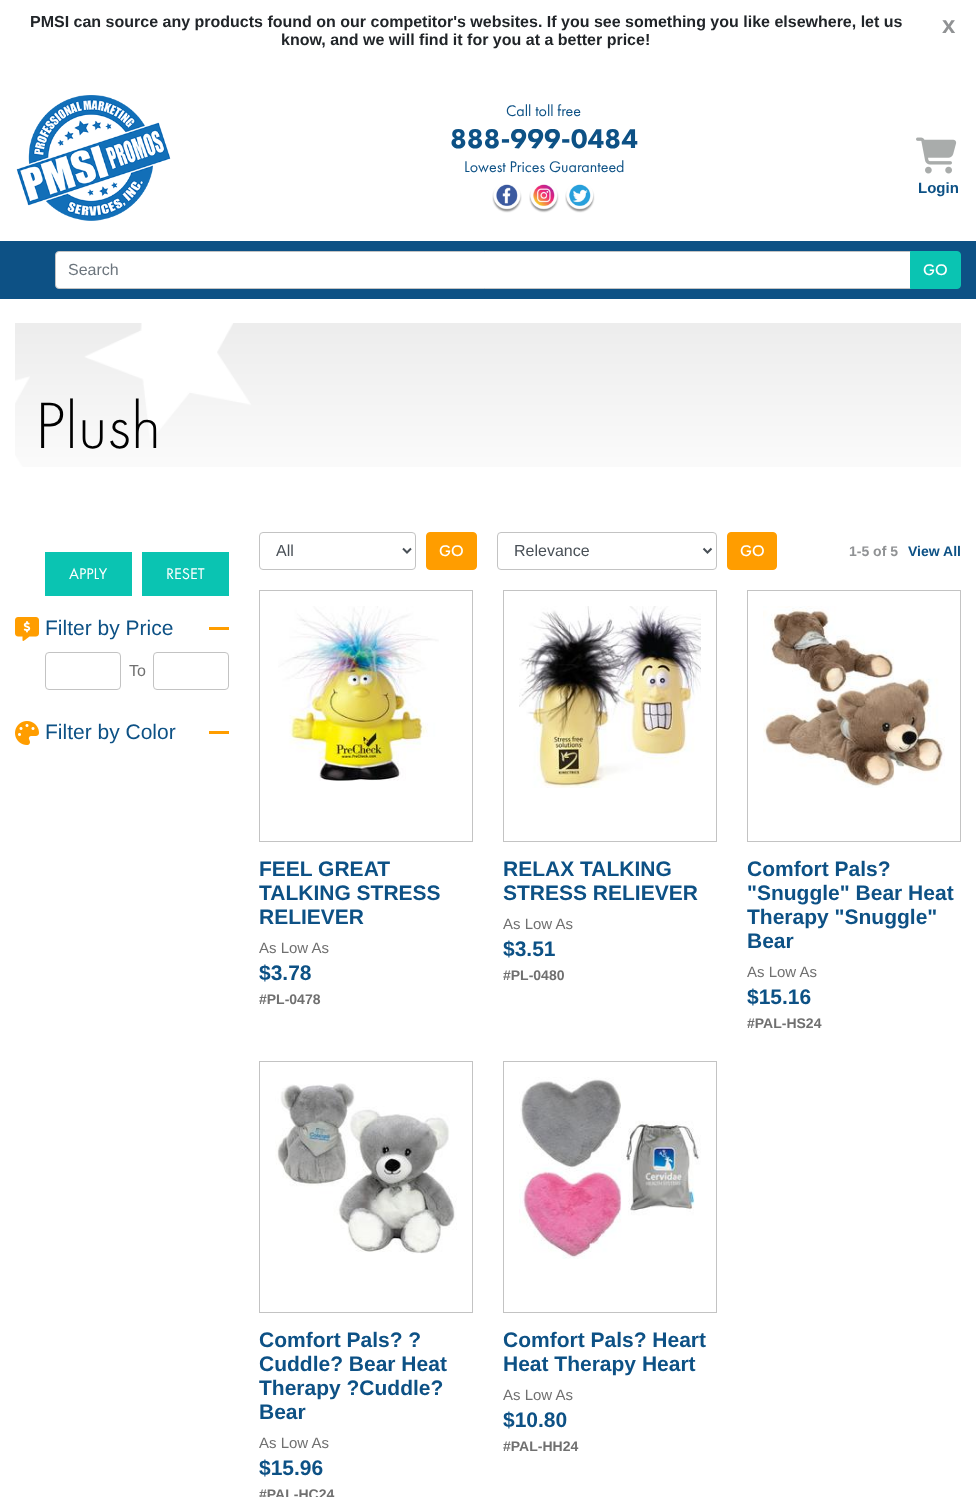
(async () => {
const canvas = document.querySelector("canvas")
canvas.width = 976
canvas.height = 1497
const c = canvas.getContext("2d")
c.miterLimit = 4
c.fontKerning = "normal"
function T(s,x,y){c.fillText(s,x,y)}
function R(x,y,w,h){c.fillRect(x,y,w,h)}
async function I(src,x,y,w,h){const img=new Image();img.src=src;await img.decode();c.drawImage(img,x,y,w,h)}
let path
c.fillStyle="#fff"
R(0,0,976,1497)
c.font="bold 16px Liberation Sans"
c.fillStyle="#212529"
T("PMSI can source any products found on our competitor's websites. If you see something you like elsewhere, let us",30,27)
T("know, and we will find it for you at a better price!",281,45)
c.font="bold 24px Liberation Sans"
c.fillStyle="#909294"
T("x",942,33)
await I("1.png",16,95,155,126)
c.font="16px Futura PT"
c.fillStyle="#0d5185"
T("Call toll free",506,116)
c.font="900 28px Futura PT"
T("888-999-0484",450,148)
c.font="16px Futura PT"
T("Lowest Prices Guaranteed",464,172)
await I("2.png",492,184,30,29)
await I("3.png",529,184,30,29)
await I("4.png",565,184,30,29)
await I("5.png",916,137,41,37)
c.font="bold 15px Liberation Sans"
T("Login",918,193)
R(0,241,976,58)
c.fillStyle="#fff"
c.beginPath()
c.roundRect(55.5,251.5,855,37,[3.5,0,0,3.5])
c.fill()
c.strokeStyle="#c3c3c3"
c.stroke()
c.font="16px Liberation Sans"
c.fillStyle="#6c757d"
T("Search",68,275)
c.fillStyle="#0ac4b2"
c.beginPath()
c.roundRect(910.5,251.5,50,37,[0,3.5,3.5,0])
c.fill()
c.strokeStyle="#0ac4b2"
c.stroke()
c.font="500 16px Futura PT"
c.fillStyle="#fff"
T("GO",923,275)
await I("6.png",15,323,946,144)
c.font="300 68px Futura PT"
c.fillStyle="#000"
T("Plush",35,448)
c.fillStyle="#0ac4b2"
R(45,552,87,44)
c.font="16px Futura PT"
c.fillStyle="#fff"
T("APPLY",69,579)
c.fillStyle="#0ac4b2"
R(142,552,87,44)
c.fillStyle="#fff"
T("RESET",166,579)
await I("7.png",15,617,24,24)
c.font="21px Liberation Sans"
c.fillStyle="#0d5185"
T("Filter by Price",45,635)
c.fillStyle="#ff9d00"
R(209,627,20,3)
c.beginPath()
c.roundRect(45.5,652.5,75,37,3.5)
c.strokeStyle="#c3c3c3"
c.stroke()
c.font="16px Liberation Sans"
c.fillStyle="#707070"
T("To",129,676)
c.beginPath()
c.roundRect(153.5,652.5,75,37,3.5)
c.stroke()
await I("8.png",15,721,24,24)
c.font="21px Liberation Sans"
c.fillStyle="#0d5185"
T("Filter by Color",45,739)
c.fillStyle="#ff9d00"
R(209,731,20,3)
c.beginPath()
c.roundRect(259.5,532.5,156,37,3.5)
c.stroke()
path = new Path2D("M403 548.5l4 4l4-4")
c.strokeStyle="#495057"
c.lineWidth=2
c.stroke(path)
c.font="16px Liberation Sans"
c.fillStyle="#495057"
T("All",276,556)
c.fillStyle="#ff9d00"
c.beginPath()
c.roundRect(426.5,532.5,50,37,3.5)
c.fill()
c.strokeStyle="#ff9d00"
c.lineWidth=1
c.stroke()
c.font="500 16px Futura PT"
c.fillStyle="#fff"
T("GO",439,556)
c.beginPath()
c.roundRect(497.5,532.5,219,37,3.5)
c.strokeStyle="#c3c3c3"
c.stroke()
path = new Path2D("M703.5 548.5l4 4l4-4")
c.strokeStyle="#495057"
c.lineWidth=2
c.stroke(path)
c.font="16px Liberation Sans"
c.fillStyle="#495057"
T("Relevance",514,556)
c.fillStyle="#ff9d00"
c.beginPath()
c.roundRect(727.5,532.5,49,37,3.5)
c.fill()
c.strokeStyle="#ff9d00"
c.lineWidth=1
c.stroke()
c.font="500 16px Futura PT"
c.fillStyle="#fff"
T("GO",740,556)
c.font="bold 14px Liberation Sans"
c.fillStyle="#909294"
T("1-5 of 5",849,556)
c.fillStyle="#0d5185"
T("View All",908,556)
c.strokeStyle="#c3c3c3"
c.strokeRect(259.5,590.5,213,251)
await I("9.png",278,606,161,175)
c.font="bold 21px Liberation Sans"
T("FEEL GREAT",259,876)
T("TALKING STRESS",259,900)
T("RELIEVER",259,924)
c.font="15px Liberation Sans"
c.fillStyle="#707070"
T("As Low As",259,953)
c.font="bold 21px Liberation Sans"
c.fillStyle="#0d5185"
T("$3.78",259,980)
c.font="bold 14px Liberation Sans"
c.fillStyle="#707070"
T("#PL-0478",259,1004)
c.strokeRect(503.5,590.5,213,251)
await I("10.png",519,606,182,182)
c.font="bold 21px Liberation Sans"
c.fillStyle="#0d5185"
T("RELAX TALKING",503,876)
T("STRESS RELIEVER",503,900)
c.font="15px Liberation Sans"
c.fillStyle="#707070"
T("As Low As",503,929)
c.font="bold 21px Liberation Sans"
c.fillStyle="#0d5185"
T("$3.51",503,956)
c.font="bold 14px Liberation Sans"
c.fillStyle="#707070"
T("#PL-0480",503,980)
c.strokeRect(747.5,590.5,213,251)
await I("11.png",763,606,182,182)
c.font="bold 21px Liberation Sans"
c.fillStyle="#0d5185"
T("Comfort Pals?",747,876)
T("\"Snuggle\" Bear Heat",747,900)
T("Therapy \"Snuggle\"",747,924)
T("Bear",747,948)
c.font="15px Liberation Sans"
c.fillStyle="#707070"
T("As Low As",747,977)
c.font="bold 21px Liberation Sans"
c.fillStyle="#0d5185"
T("$15.16",747,1004)
c.font="bold 14px Liberation Sans"
c.fillStyle="#707070"
T("#PAL-HS24",747,1028)
c.strokeRect(259.5,1061.5,213,251)
await I("12.png",275,1083,182,171)
c.font="bold 21px Liberation Sans"
c.fillStyle="#0d5185"
T("Comfort Pals? ?",259,1347)
T("Cuddle? Bear Heat",259,1371)
T("Therapy ?Cuddle?",259,1395)
T("Bear",259,1419)
c.font="15px Liberation Sans"
c.fillStyle="#707070"
T("As Low As",259,1448)
c.font="bold 21px Liberation Sans"
c.fillStyle="#0d5185"
T("$15.96",259,1475)
c.font="bold 14px Liberation Sans"
c.fillStyle="#707070"
T("#PAL-HC24",259,1499)
c.strokeRect(503.5,1061.5,213,251)
await I("13.png",519,1077,182,182)
c.font="bold 21px Liberation Sans"
c.fillStyle="#0d5185"
T("Comfort Pals? Heart",503,1347)
T("Heat Therapy Heart",503,1371)
c.font="15px Liberation Sans"
c.fillStyle="#707070"
T("As Low As",503,1400)
c.font="bold 21px Liberation Sans"
c.fillStyle="#0d5185"
T("$10.80",503,1427)
c.font="bold 14px Liberation Sans"
c.fillStyle="#707070"
T("#PAL-HH24",503,1451)
})()
